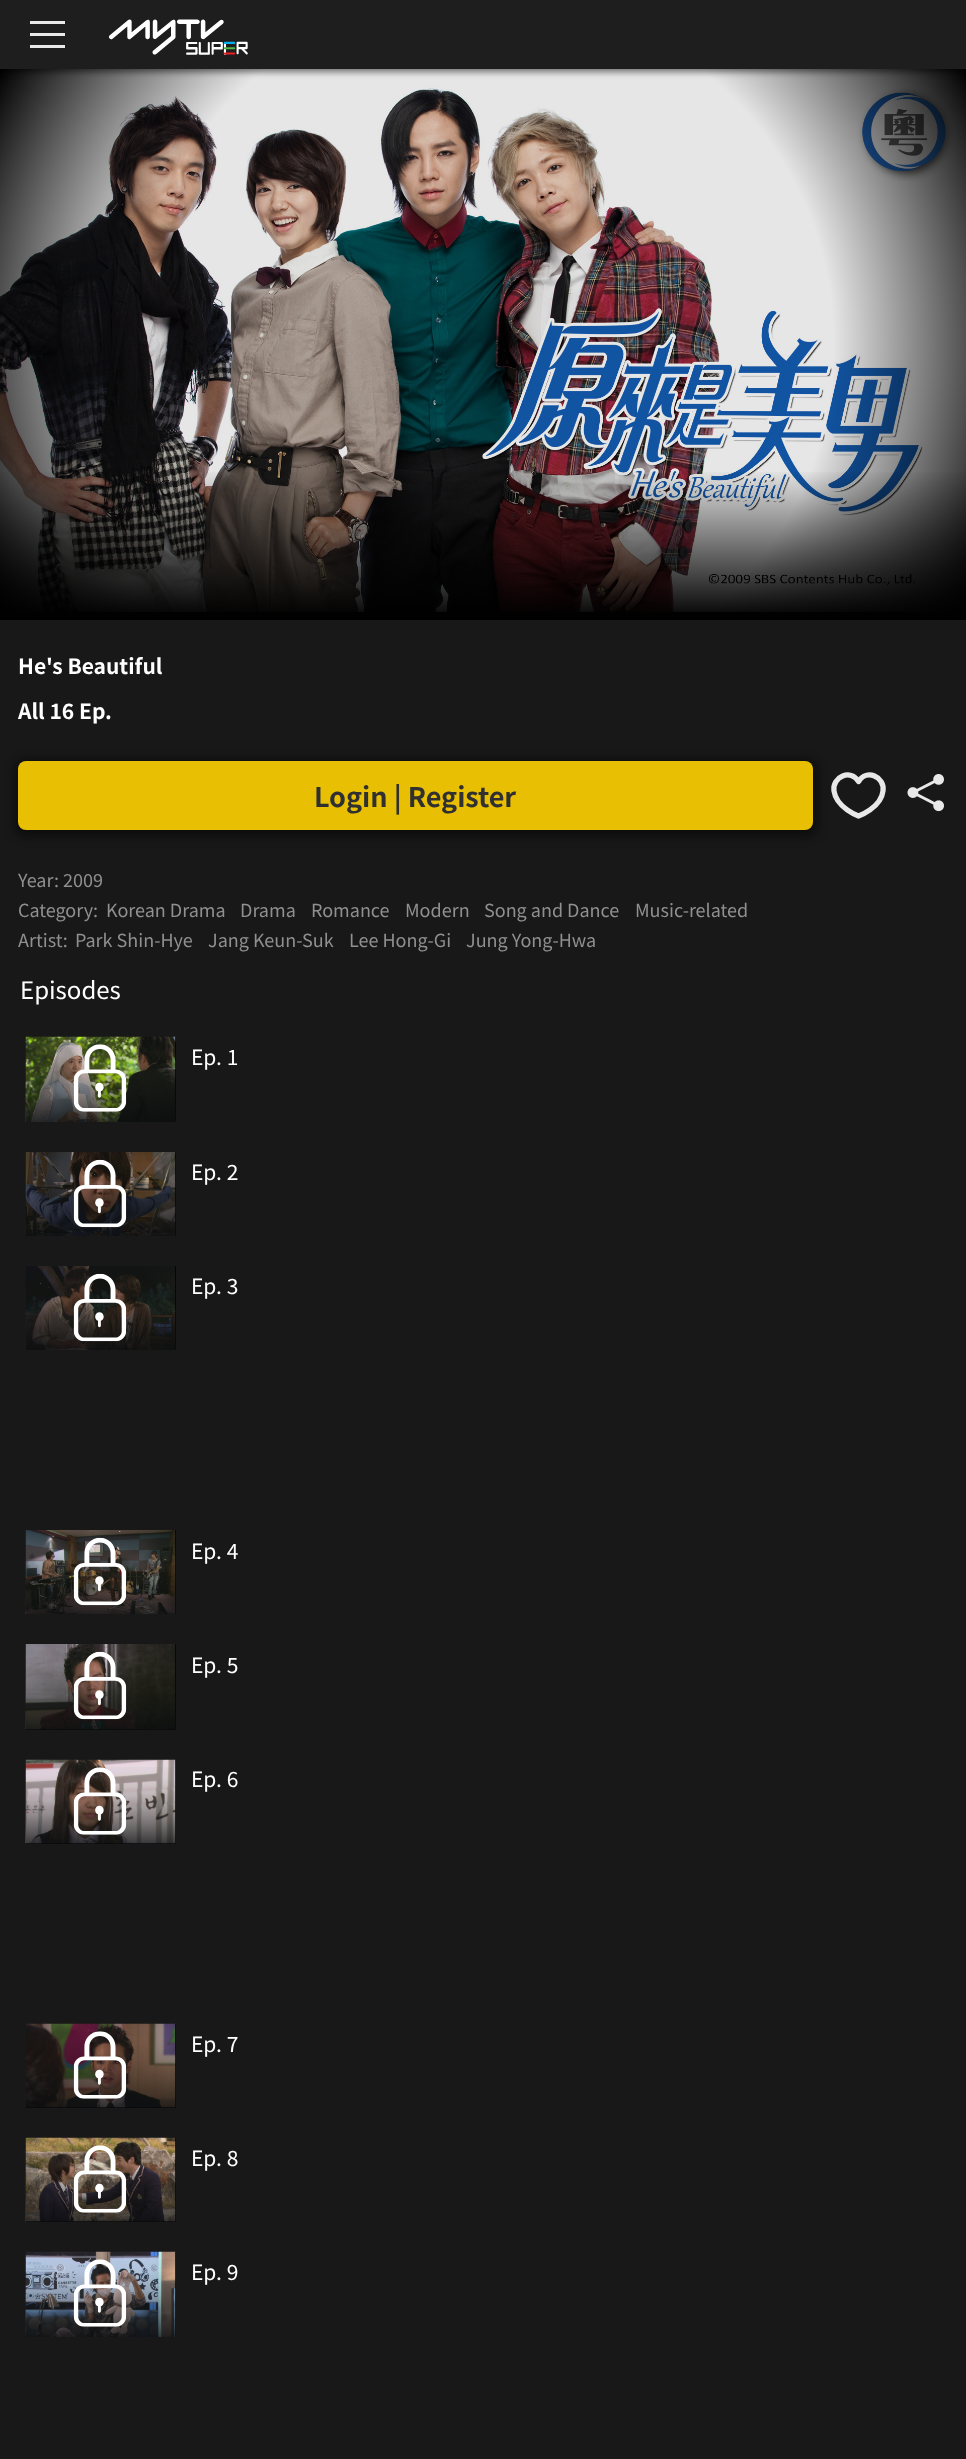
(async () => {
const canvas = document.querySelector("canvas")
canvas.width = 966
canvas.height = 2459
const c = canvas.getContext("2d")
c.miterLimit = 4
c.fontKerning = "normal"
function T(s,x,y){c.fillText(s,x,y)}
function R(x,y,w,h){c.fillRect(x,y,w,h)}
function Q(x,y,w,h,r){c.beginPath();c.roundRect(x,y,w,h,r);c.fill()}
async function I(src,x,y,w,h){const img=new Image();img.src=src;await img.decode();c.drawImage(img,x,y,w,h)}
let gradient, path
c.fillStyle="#181818"
R(0,0,966,2459)
await I("2.png",0,69,966,543)
gradient = c.createLinearGradient(483,469,483,620)
gradient.addColorStop(0,"#00000000")
gradient.addColorStop(1,"#000")
c.fillStyle = gradient
R(0,472,966,148)
gradient = c.createRadialGradient(483,344,0,483,344,556)
gradient.addColorStop(0,"#00000000")
gradient.addColorStop(.63,"#00000000")
gradient.addColorStop(1,"#000")
c.fillStyle = gradient
R(0,69,966,543)
c.fillStyle="#00000080"
c.filter="blur(3px)"
c.beginPath()
c.rect(0,3,966,69)
c.fill()
c.filter="none"
c.fillStyle="#1e1e1e"
R(0,0,966,69)
c.fillStyle="#e9e9e9"
R(30,21,35,3)
R(30,33,35,3)
R(30,45,35,3)
await I("1.png",108,19,140,36)
c.font="bold 21px Noto Sans TC"
c.fillStyle="#fff"
T("He's Beautiful",18,674)
T("All 16 Ep.",18,719)
c.fillStyle="#02020280"
c.filter="blur(5px)"
c.beginPath()
c.roundRect(14,759,804,78,12)
c.fill()
c.filter="none"
c.fillStyle="#e8bf02"
Q(18,761,795,69,8)
c.font="bold 27px Noto Sans TC"
c.fillStyle="#303030"
T("Login | Register",314,807)
path = new Path2D("M858.5 781.5c-7.5-13-26.5-5-24.5 9.5c2.5 17 24.5 25 24.5 25c0 0 22.5-8 24.5-25c2-14.5-16.5-22.5-24.5-9.5z")
c.strokeStyle="#e8e8e8"
c.lineWidth=5.3
c.lineCap="round"
c.lineJoin="round"
c.stroke(path)
await I("3.png",907,774,37,38)
c.font="18px Noto Sans TC"
c.fillStyle="#909090"
T("Year: 2009",18,887)
T("Category:",18,917)
T("Korean Drama",106,917)
T("Drama",240,917)
T("Romance",311,917)
T("Modern",405,917)
T("Song and Dance",484,917)
T("Music-related",635,917)
T("Artist:",18,947)
T("Park Shin-Hye",75,947)
T("Jang Keun-Suk",208,947)
T("Lee Hong-Gi",349,947)
T("Jung Yong-Hwa",466,947)
c.font="24px Noto Sans TC"
c.fillStyle="#fff"
T("Episodes",20,999)
c.fillStyle="#000"
R(175,1037,1,85)
await I("4.png",25,1036,151,86)
gradient = c.createLinearGradient(101,1122,101,1037)
gradient.addColorStop(0,"#0a0c0fcc")
gradient.addColorStop(.04,"#0a0c0fbd")
gradient.addColorStop(.17,"#0a0c0f96")
gradient.addColorStop(.34,"#0a0c0f66")
gradient.addColorStop(.55,"#0a0c0f36")
gradient.addColorStop(.78,"#0a0c0f0f")
gradient.addColorStop(1,"#0a0c0f00")
c.fillStyle = gradient
R(26,1044,150,78)
await I("5.png",73,1044,54,68)
c.font="21px Noto Sans TC"
c.fillStyle="#fff"
T("Ep. 1",191,1065)
c.fillStyle="#000"
R(175,1152,1,84)
await I("6.png",25,1152,151,84)
gradient = c.createLinearGradient(101,1236,101,1152)
gradient.addColorStop(0,"#0a0c0fcc")
gradient.addColorStop(.04,"#0a0c0fbd")
gradient.addColorStop(.17,"#0a0c0f96")
gradient.addColorStop(.34,"#0a0c0f66")
gradient.addColorStop(.55,"#0a0c0f36")
gradient.addColorStop(.78,"#0a0c0f0f")
gradient.addColorStop(1,"#0a0c0f00")
c.fillStyle = gradient
R(26,1159,150,77)
await I("7.png",73,1159,54,69)
c.fillStyle="#fff"
T("Ep. 2",191,1180)
c.fillStyle="#000"
R(175,1266,1,84)
await I("8.png",25,1266,151,84)
gradient = c.createLinearGradient(101,1350,101,1266)
gradient.addColorStop(0,"#0a0c0fcc")
gradient.addColorStop(.04,"#0a0c0fbd")
gradient.addColorStop(.17,"#0a0c0f96")
gradient.addColorStop(.34,"#0a0c0f66")
gradient.addColorStop(.55,"#0a0c0f36")
gradient.addColorStop(.78,"#0a0c0f0f")
gradient.addColorStop(1,"#0a0c0f00")
c.fillStyle = gradient
R(26,1280,150,70)
await I("9.png",73,1273,54,69)
c.fillStyle="#fff"
T("Ep. 3",191,1294)
c.fillStyle="#000"
R(175,1530,1,84)
await I("10.png",25,1530,151,84)
gradient = c.createLinearGradient(101,1614,101,1530)
gradient.addColorStop(0,"#0a0c0fcc")
gradient.addColorStop(.04,"#0a0c0fbd")
gradient.addColorStop(.17,"#0a0c0f96")
gradient.addColorStop(.34,"#0a0c0f66")
gradient.addColorStop(.55,"#0a0c0f36")
gradient.addColorStop(.78,"#0a0c0f0f")
gradient.addColorStop(1,"#0a0c0f00")
c.fillStyle = gradient
R(26,1537,150,77)
await I("11.png",73,1537,54,69)
c.fillStyle="#fff"
T("Ep. 4",191,1559)
c.fillStyle="#000"
R(26,1644,150,86)
await I("12.png",25,1644,151,86)
gradient = c.createLinearGradient(101,1730,101,1644)
gradient.addColorStop(0,"#0a0c0fcc")
gradient.addColorStop(.04,"#0a0c0fbd")
gradient.addColorStop(.17,"#0a0c0f96")
gradient.addColorStop(.34,"#0a0c0f66")
gradient.addColorStop(.55,"#0a0c0f36")
gradient.addColorStop(.78,"#0a0c0f0f")
gradient.addColorStop(1,"#0a0c0f00")
c.fillStyle = gradient
R(26,1651,150,79)
await I("13.png",73,1651,54,69)
c.fillStyle="#fff"
T("Ep. 5",191,1673)
c.fillStyle="#000"
R(26,1760,150,84)
await I("14.png",25,1759,151,85)
gradient = c.createLinearGradient(101,1844,101,1760)
gradient.addColorStop(0,"#0a0c0fcc")
gradient.addColorStop(.04,"#0a0c0fbd")
gradient.addColorStop(.17,"#0a0c0f96")
gradient.addColorStop(.34,"#0a0c0f66")
gradient.addColorStop(.55,"#0a0c0f36")
gradient.addColorStop(.78,"#0a0c0f0f")
gradient.addColorStop(1,"#0a0c0f00")
c.fillStyle = gradient
R(26,1767,150,77)
await I("15.png",73,1767,54,68)
c.fillStyle="#fff"
T("Ep. 6",191,1787)
c.fillStyle="#000"
R(26,2024,150,84)
await I("16.png",25,2023,151,85)
gradient = c.createLinearGradient(101,2108,101,2024)
gradient.addColorStop(0,"#0a0c0fcc")
gradient.addColorStop(.04,"#0a0c0fbd")
gradient.addColorStop(.17,"#0a0c0f96")
gradient.addColorStop(.34,"#0a0c0f66")
gradient.addColorStop(.55,"#0a0c0f36")
gradient.addColorStop(.78,"#0a0c0f0f")
gradient.addColorStop(1,"#0a0c0f00")
c.fillStyle = gradient
R(26,2031,150,77)
await I("17.png",73,2031,54,68)
c.fillStyle="#fff"
T("Ep. 7",191,2052)
c.fillStyle="#000"
R(26,2138,150,84)
await I("18.png",25,2137,151,85)
gradient = c.createLinearGradient(101,2222,101,2138)
gradient.addColorStop(0,"#0a0c0fcc")
gradient.addColorStop(.04,"#0a0c0fbd")
gradient.addColorStop(.17,"#0a0c0f96")
gradient.addColorStop(.34,"#0a0c0f66")
gradient.addColorStop(.55,"#0a0c0f36")
gradient.addColorStop(.78,"#0a0c0f0f")
gradient.addColorStop(1,"#0a0c0f00")
c.fillStyle = gradient
R(26,2145,150,77)
await I("19.png",73,2145,54,68)
c.fillStyle="#fff"
T("Ep. 8",191,2166)
c.fillStyle="#000"
R(175,2252,1,85)
await I("20.png",25,2251,151,86)
gradient = c.createLinearGradient(101,2337,101,2252)
gradient.addColorStop(0,"#0a0c0fcc")
gradient.addColorStop(.04,"#0a0c0fbd")
gradient.addColorStop(.17,"#0a0c0f96")
gradient.addColorStop(.34,"#0a0c0f66")
gradient.addColorStop(.55,"#0a0c0f36")
gradient.addColorStop(.78,"#0a0c0f0f")
gradient.addColorStop(1,"#0a0c0f00")
c.fillStyle = gradient
R(26,2259,150,78)
await I("21.png",73,2259,54,68)
c.fillStyle="#fff"
T("Ep. 9",191,2280)
})()
